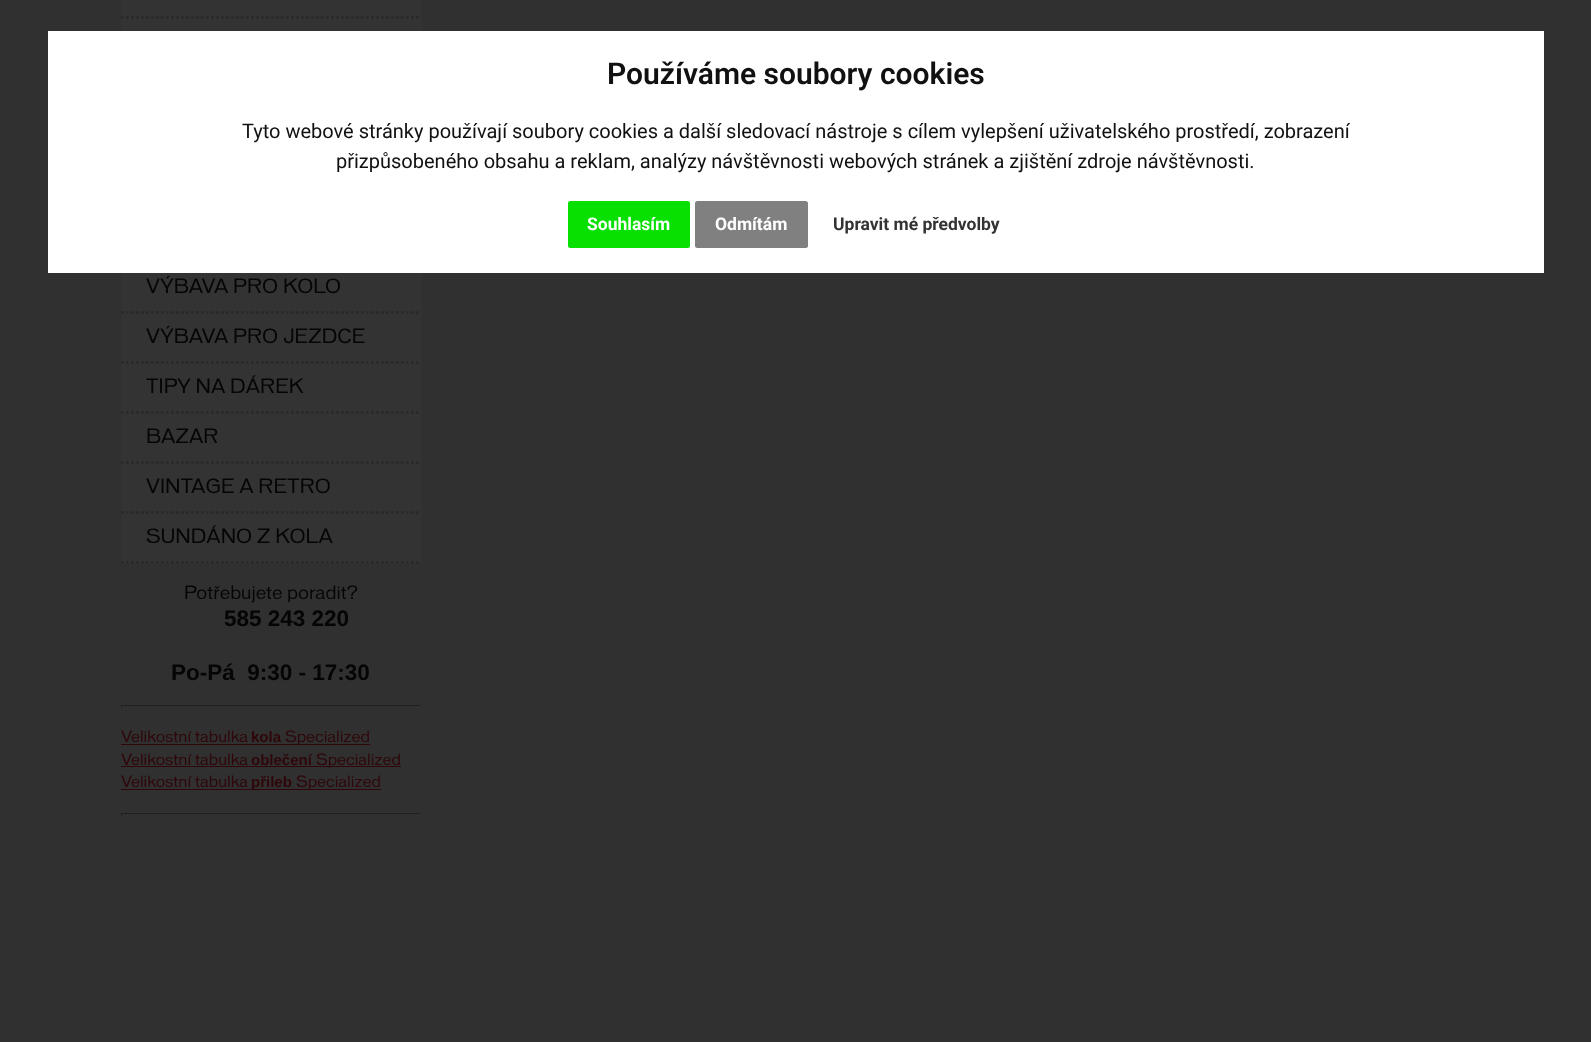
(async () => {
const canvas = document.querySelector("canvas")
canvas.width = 1591
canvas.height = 1042
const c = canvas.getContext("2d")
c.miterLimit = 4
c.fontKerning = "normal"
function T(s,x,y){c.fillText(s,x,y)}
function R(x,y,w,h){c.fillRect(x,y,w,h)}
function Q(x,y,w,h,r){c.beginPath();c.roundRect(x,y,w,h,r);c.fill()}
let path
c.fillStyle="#303030"
R(0,0,1591,1042)
c.fillStyle="#333"
R(121,0,300,564)
c.fillStyle="#fff"
R(48,31,1496,242)
c.font="600 30px Roboto"
c.fillStyle="#111"
T("Používáme soubory cookies",607,84)
c.font="20px Roboto"
T("Tyto webové stránky používají soubory cookies a další sledovací nástroje s cílem vylepšení uživatelského prostředí, zobrazení",242,138)
T("přizpůsobeného obsahu a reklam, analýzy návštěvnosti webových stránek a zjištění zdroje návštěvnosti.",336,168)
c.fillStyle="#07e000"
Q(568,201,122,47,2.5)
c.font="bold 17.5px Roboto"
c.fillStyle="#fff"
T("Souhlasím",587,230)
c.fillStyle="#808080"
Q(695,201,113,47,2.5)
c.fillStyle="#fff"
T("Odmítám",715,230)
c.fillStyle="#333"
T("Upravit mé předvolby",833,230)
path = new Path2D("M121 17.5h300")
c.strokeStyle="#292929"
c.lineWidth=2.5
c.setLineDash([2.5,2.5])
c.stroke(path)
path = new Path2D("M121 312.5h300")
c.stroke(path)
c.font="18.75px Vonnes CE"
c.fillStyle="#050505"
T("VÝBAVA PRO KOLO",146,293)
path = new Path2D("M121 362.5h300")
c.stroke(path)
T("VÝBAVA PRO JEZDCE",146,343)
path = new Path2D("M121 412.5h300")
c.stroke(path)
T("TIPY NA DÁREK",146,393)
path = new Path2D("M121 462.5h300")
c.stroke(path)
T("BAZAR",146,443)
path = new Path2D("M121 512.5h300")
c.stroke(path)
T("VINTAGE A RETRO",146,493)
path = new Path2D("M121 562.5h300")
c.stroke(path)
T("SUNDÁNO Z KOLA",146,543)
c.font="17.5px Vonnes CE"
T("Potřebujete poradit?",184,599)
c.font="bold 22.5px Liberation Sans"
T("585 243 220",224,626)
T("Po-Pá  9:30 - 17:30",171,680)
c.fillStyle="#202020"
R(121,705,300,1)
c.fillStyle="#303030"
R(420,705,1,3)
c.fillStyle="#202020"
R(121,705,1,3)
c.font="15px Vonnes CE"
c.fillStyle="#2f0609"
T("Velikostní tabulka",121,742)
c.font="bold 15px Liberation Sans"
T("kola",251,742)
R(121,744,249,1)
c.font="15px Vonnes CE"
T("Specialized",285,742)
T("Velikostní tabulka",121,765)
c.font="bold 15px Liberation Sans"
T("oblečení",251,765)
R(121,766,280,1)
c.font="15px Vonnes CE"
T("Specialized",316,765)
T("Velikostní tabulka",121,787)
R(121,789,260,1)
c.font="bold 15px Liberation Sans"
T("přileb",251,787)
c.font="15px Vonnes CE"
T("Specialized",296,787)
c.fillStyle="#202020"
R(121,813,300,1)
c.fillStyle="#303030"
R(420,813,1,3)
c.fillStyle="#202020"
R(121,813,1,3)
})()
